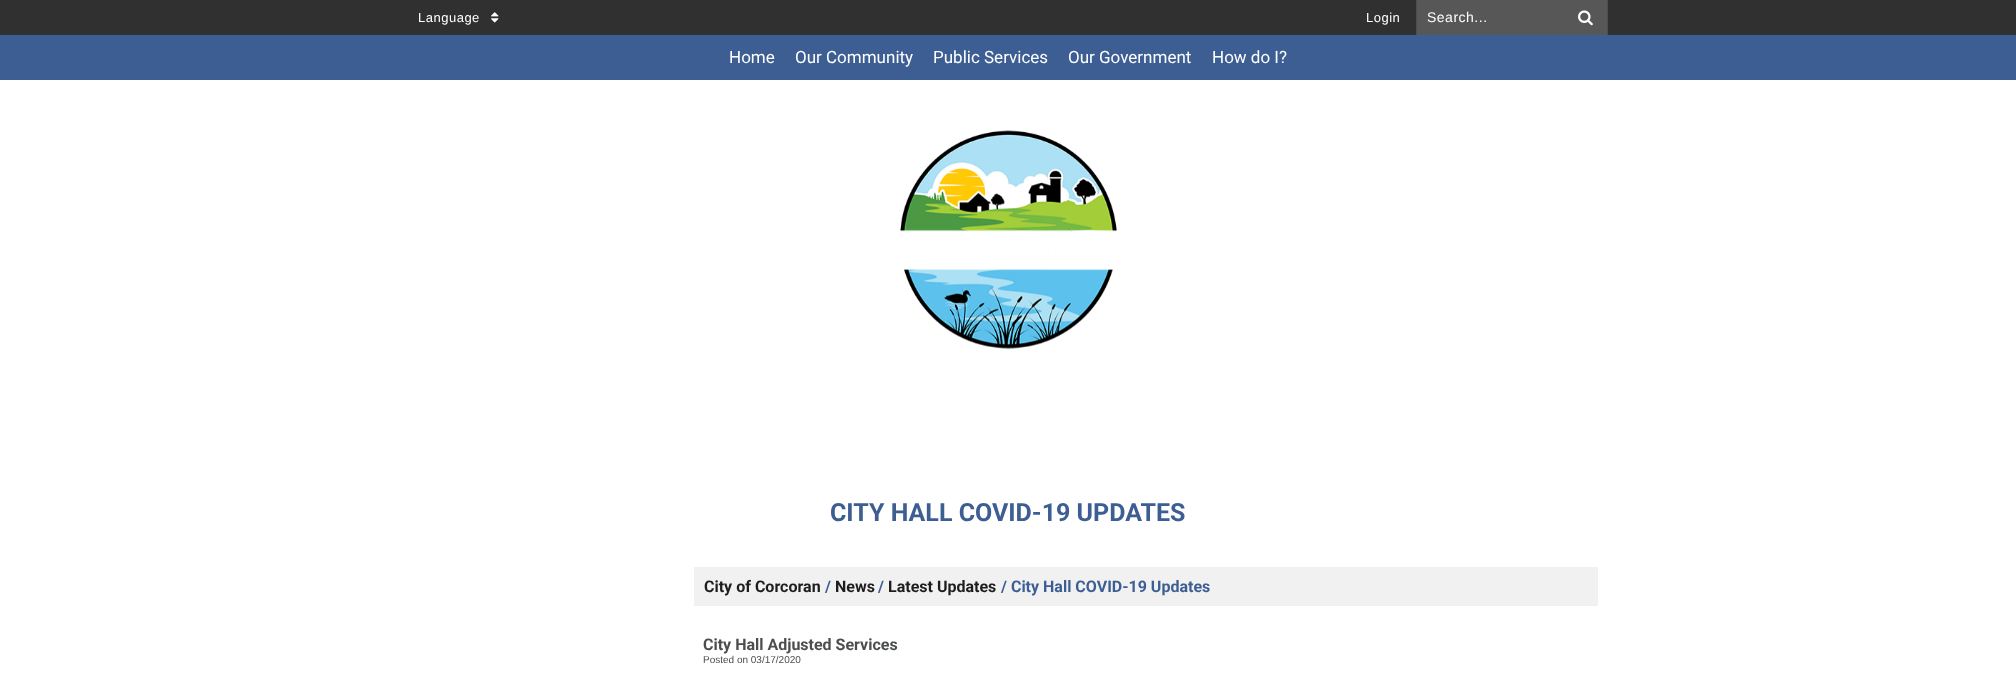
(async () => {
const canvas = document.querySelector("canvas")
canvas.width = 2016
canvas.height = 689
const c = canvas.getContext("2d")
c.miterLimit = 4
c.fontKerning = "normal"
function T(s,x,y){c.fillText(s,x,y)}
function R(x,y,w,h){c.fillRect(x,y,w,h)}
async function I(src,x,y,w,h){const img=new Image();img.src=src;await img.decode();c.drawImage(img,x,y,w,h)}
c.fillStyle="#fff"
R(0,0,2016,689)
c.fillStyle="#303030"
R(0,0,2016,35)
c.letterSpacing="0.5px"
c.font="13px Liberation Sans"
c.fillStyle="#fff"
T("Language",418,22)
await I("1.png",491,12,8,11)
c.fillStyle="#4d4d4d"
R(1416,0,1,35)
c.fillStyle="#fff"
T("Login",1366,22)
c.fillStyle="#4d4d4d"
R(1607,0,1,35)
c.fillStyle="#575757"
R(1417,0,190,35)
c.font="14px Liberation Sans"
c.fillStyle="#fff"
T("Search...",1427,22)
await I("2.png",1578,10,15,16)
c.fillStyle="#3d5e92"
R(0,35,2016,45)
c.letterSpacing="0px"
c.font="17px Roboto"
c.fillStyle="#fff"
T("Home",729,63)
T("Our Community",795,63)
T("Public Services",933,63)
T("Our Government",1068,63)
T("How do I?",1212,63)
await I("3.png",900,130,217,220)
c.font="bold 25px Roboto"
c.fillStyle="#3d5e92"
T("CITY HALL COVID-19 UPDATES",830,521)
c.fillStyle="#f1f1f2"
R(694,567,904,39)
c.font="bold 16px Roboto"
c.fillStyle="#1d1d1d"
T("City of Corcoran",704,592)
c.fillStyle="#3d5e92"
T("/",825,592)
c.fillStyle="#1d1d1d"
T("News",835,592)
c.fillStyle="#3d5e92"
T("/",878,592)
c.fillStyle="#1d1d1d"
T("Latest Updates",888,592)
c.fillStyle="#3d5e92"
T("/ City Hall COVID-19 Updates",1001,592)
c.fillStyle="#4c4e4e"
T("City Hall Adjusted Services",703,650)
c.font="10px Liberation Sans"
T("Posted on 03/17/2020",703,663)
})()
